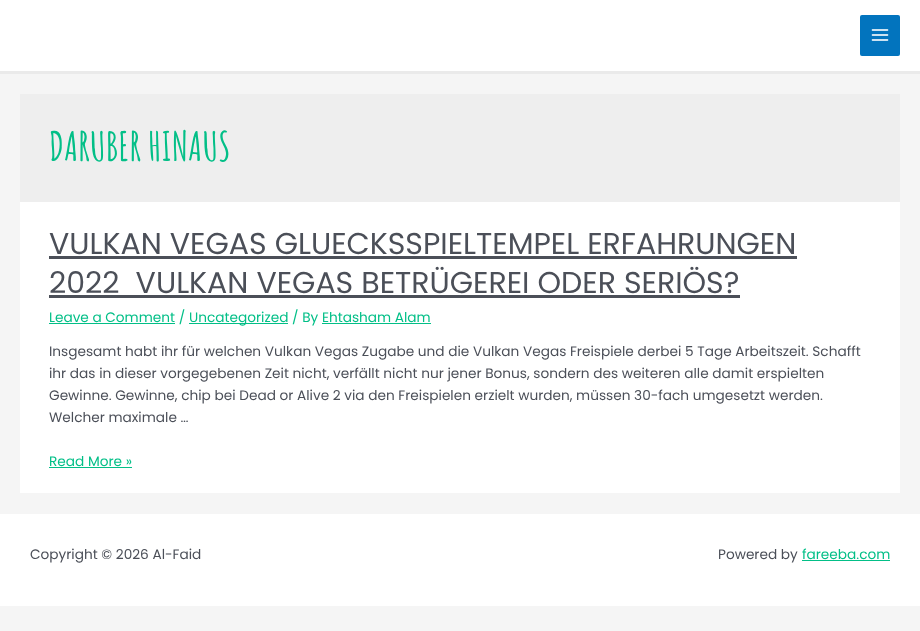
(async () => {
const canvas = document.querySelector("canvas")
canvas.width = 920
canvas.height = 631
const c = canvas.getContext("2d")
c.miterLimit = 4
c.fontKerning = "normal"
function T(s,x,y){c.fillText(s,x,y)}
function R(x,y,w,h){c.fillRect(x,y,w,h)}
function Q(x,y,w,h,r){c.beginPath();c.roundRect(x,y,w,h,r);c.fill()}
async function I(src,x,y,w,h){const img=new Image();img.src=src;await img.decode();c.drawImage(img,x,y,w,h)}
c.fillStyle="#f5f5f5"
R(0,0,920,631)
c.fillStyle="#fff"
R(0,0,920,71)
c.fillStyle="#eaeaea"
R(0,71,920,3)
c.fillStyle="#0274be"
Q(860,15,40,41,2)
await I("1.png",871,29,18,12)
c.fillStyle="#eee"
R(20,94,880,108)
c.font="bold 40px Amatic SC"
c.fillStyle="#02bf87"
T("DARUBER HINAUS",49,161)
c.fillStyle="#fff"
R(20,202,880,291)
c.font="30px Poppins"
c.fillStyle="#4b4f58"
T("VULKAN VEGAS GLUECKSSPIELTEMPEL ERFAHRUNGEN",49,254)
R(49,256,748,3)
T("2022 ️ VULKAN VEGAS BETRÜGEREI ODER SERIÖS?",49,293)
R(49,295,691,3)
c.fillStyle="#02bf87"
R(49,323,126,1)
c.font="13.68px Poppins"
T("Leave a Comment /",49,322)
R(189,323,99,1)
T("Uncategorized / By Ehtasham Alam",189,322)
R(322,323,109,1)
c.fillStyle="#4b4f58"
T("Insgesamt habt ihr für welchen Vulkan Vegas Zugabe und die Vulkan Vegas Freispiele derbei 5 Tage Arbeitszeit. Schafft",49,356)
T("ihr das in dieser vorgegebenen Zeit nicht, verfällt nicht nur jener Bonus, sondern des weiteren alle damit erspielten",49,378)
T("Gewinne. Gewinne, chip bei Dead or Alive 2 via den Freispielen erzielt wurden, müssen 30-fach umgesetzt werden.",49,400)
T("Welcher maximale …",49,422)
c.fillStyle="#02bf87"
T("Read More »",49,466)
R(49,467,83,1)
c.fillStyle="#fff"
R(0,514,920,92)
c.fillStyle="#4b4f58"
T("Copyright © 2026 Al-Faid",30,559)
T("Powered by",718,559)
c.fillStyle="#02bf87"
T("fareeba.com",802,559)
R(802,560,88,1)
})()
